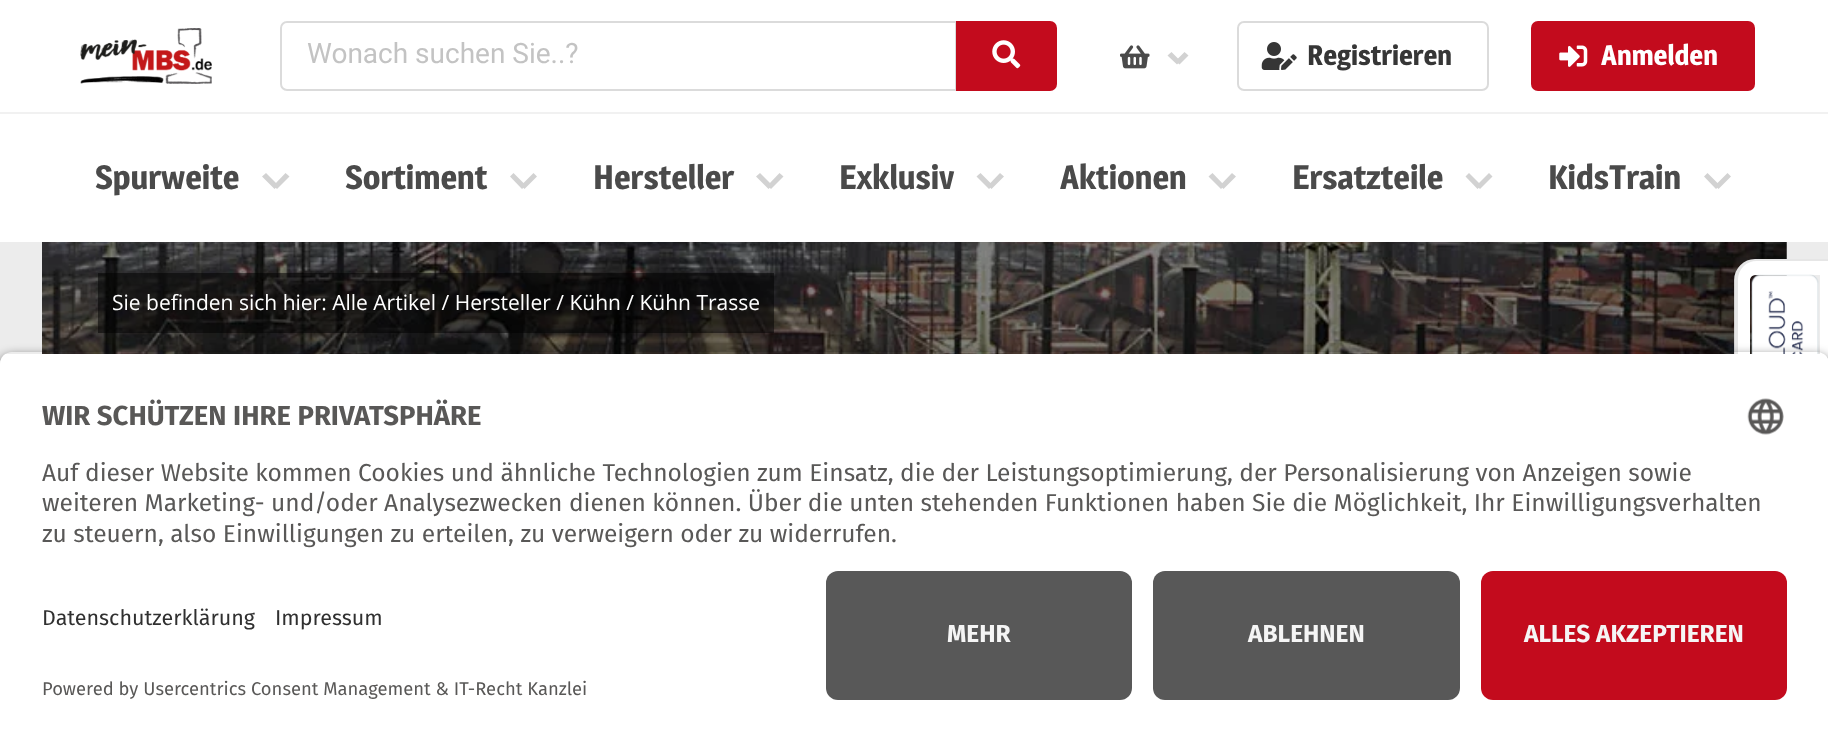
(async () => {
const canvas = document.querySelector("canvas")
canvas.width = 1828
canvas.height = 742
const c = canvas.getContext("2d")
c.miterLimit = 4
c.fontKerning = "normal"
function T(s,x,y){c.fillText(s,x,y)}
function R(x,y,w,h){c.fillRect(x,y,w,h)}
function Q(x,y,w,h,r){c.beginPath();c.roundRect(x,y,w,h,r);c.fill()}
async function I(src,x,y,w,h){const img=new Image();img.src=src;await img.decode();c.drawImage(img,x,y,w,h)}
let path
c.fillStyle="#fff"
R(0,0,1828,742)
c.fillStyle="#ececec"
R(0,242,1828,122)
c.fillStyle="#f1f1f1"
R(0,112,1828,2)
await I("1.png",80,28,132,56)
c.beginPath()
c.roundRect(281,22,675,68,[6,0,0,6])
c.strokeStyle="#dbdbdb"
c.lineWidth=2
c.stroke()
c.font="28px Roboto"
c.fillStyle="#c3c3c3"
T("Wonach suchen Sie..?",307,63)
c.fillStyle="#c30b1d"
c.beginPath()
c.roundRect(956,21,101,70,[0,7,7,0])
c.fill()
await I("2.png",992,40,29,29)
await I("3.png",1120,45,30,24)
c.fillStyle="#d2d2d2"
path = new Path2D("M1175.5 61l9-9l4 3.5l-9 9z")
c.fill(path)
path = new Path2D("M1167.5 55.5l4-3.5l9 9l-3.5 3.5z")
c.fill(path)
c.beginPath()
c.roundRect(1238,22,250,68,6)
c.stroke()
await I("4.png",1261,42,36,28)
c.font="bold 28px Magra"
c.fillStyle="#363636"
T("Registrieren",1307,65)
c.fillStyle="#c30b1d"
Q(1531,21,224,70,7)
await I("5.png",1559,45,29,22)
c.fillStyle="#fff"
T("Anmelden",1601,65)
c.font="bold 33.5px Magra"
c.fillStyle="#4a4a4a"
T("Spurweite",95,189)
c.fillStyle="#d2d2d2"
path = new Path2D("M273.5 185.5l12-12.5l4 3.5l-12.5 12.5z")
c.fill(path)
path = new Path2D("M262 176.5l4-3.5l12.5 12.5l-4 3.5z")
c.fill(path)
c.fillStyle="#4a4a4a"
T("Sortiment",345,189)
c.fillStyle="#d2d2d2"
path = new Path2D("M521 185.5l12.5-12.5l3.5 3.5l-12.5 12.5z")
c.fill(path)
path = new Path2D("M510 176.5l3.5-3.5l12.5 12.5l-4 3.5z")
c.fill(path)
c.fillStyle="#4a4a4a"
T("Hersteller",593,189)
c.fillStyle="#d2d2d2"
path = new Path2D("M767.5 185.5l12-12.5l4 3.5l-12.5 12.5z")
c.fill(path)
path = new Path2D("M756 176.5l4-3.5l12.5 12.5l-4 3.5z")
c.fill(path)
c.fillStyle="#4a4a4a"
T("Exklusiv",839,189)
c.fillStyle="#d2d2d2"
path = new Path2D("M988 185.5l12-12.5l4 3.5l-12.5 12.5z")
c.fill(path)
path = new Path2D("M976.5 176.5l4-3.5l12.5 12.5l-4 3.5z")
c.fill(path)
c.fillStyle="#4a4a4a"
T("Aktionen",1060,189)
c.fillStyle="#d2d2d2"
path = new Path2D("M1220 185.5l12-12.5l4 3.5l-12.5 12.5z")
c.fill(path)
path = new Path2D("M1208.5 176.5l4-3.5l12 12.5l-3.5 3.5z")
c.fill(path)
c.fillStyle="#4a4a4a"
T("Ersatzteile",1292,189)
c.fillStyle="#d2d2d2"
path = new Path2D("M1476.5 185.5l12.5-12.5l3.5 3.5l-12.5 12.5z")
c.fill(path)
path = new Path2D("M1465.5 176.5l3.5-3.5l12.5 12.5l-4 3.5z")
c.fill(path)
c.fillStyle="#4a4a4a"
T("KidsTrain",1548,189)
c.fillStyle="#d2d2d2"
path = new Path2D("M1715 185.5l12.5-12.5l3.5 3.5l-12.5 12.5z")
c.fill(path)
path = new Path2D("M1704 176.5l3.5-3.5l12.5 12.5l-4 3.5z")
c.fill(path)
await I("6.png",42,242,1745,112)
c.fillStyle="#00000080"
R(98,273,676,60)
c.font="21px Open Sans"
c.fillStyle="#fff"
T("Sie befinden sich hier: Alle Artikel / Hersteller / Kühn / Kühn Trasse",112,310)
c.fillStyle="#00000033"
c.filter="blur(10.5px)"
c.beginPath()
c.roundRect(1650,364,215,70,5)
c.fill()
c.filter="none"
path = new Path2D("M1742 532v-252c0-7 6-13 13-13h73v278h-73c-7 0-13-6-13-13z")
c.strokeStyle="#e6e6e6"
c.lineWidth=15.8
c.stroke(path)
c.fillStyle="#fff"
path = new Path2D("M1738 532c0 11 8 19 19 19h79v-290h-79c-11 0-19 8-19 19zm12 0c0 3 2 5 5 5h65v-262h-65c-3 0-5 2-5 5z")
c.fill(path,"evenodd")
await I("7.png",1751,274,68,80)
c.save()
path = new Path2D("M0 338h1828v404h-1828zm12 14h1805c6.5 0 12 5.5 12 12v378h-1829v-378c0-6.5 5.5-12 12-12z")
c.clip(path,"evenodd")
c.fillStyle="#000000cc"
c.filter="blur(6px)"
c.beginPath()
c.roundRect(0,357,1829,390,12)
c.fill()
c.filter="none"
c.restore()
c.save()
path = new Path2D("M12 352h1805c6.5 0 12 5.5 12 12v193h-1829v-193c0-6.5 5.5-12 12-12z")
c.clip(path)
R(0,354,1828,203)
c.restore()
c.font="bold 27.5px Fira Sans"
c.fillStyle="#595857"
T("WIR SCHÜTZEN IHRE PRIVATSPHÄRE",42,425)
await I("8.png",1747,398,37,37)
c.font="24.5px Fira Sans"
T("Auf dieser Website kommen Cookies und ähnliche Technologien zum Einsatz, die der Leistungsoptimierung, der Personalisierung von Anzeigen sowie",42,481)
T("weiteren Marketing- und/oder Analysezwecken dienen können. Über die unten stehenden Funktionen haben Sie die Möglichkeit, Ihr Einwilligungsverhalten",42,511)
T("zu steuern, also Einwilligungen zu erteilen, zu verweigern oder zu widerrufen.",42,542)
c.font="21.5px Fira Sans"
c.fillStyle="#303030"
T("Datenschutzerklärung",42,625)
T("Impressum",275,625)
c.font="18.4px Fira Sans"
c.fillStyle="#595857"
T("Powered by Usercentrics Consent Management & IT-Recht Kanzlei",42,695)
c.fillStyle="#585858"
Q(826,571,306,129,12)
c.font="bold 24.5px Fira Sans"
c.fillStyle="#f5f5f5"
T("MEHR",947,642)
c.fillStyle="#585858"
Q(1153,571,307,129,12)
c.fillStyle="#f5f5f5"
T("ABLEHNEN",1248,642)
c.fillStyle="#c30b1d"
Q(1481,571,306,129,12)
c.fillStyle="#f5f5f5"
T("ALLES AKZEPTIEREN",1524,642)
})()
